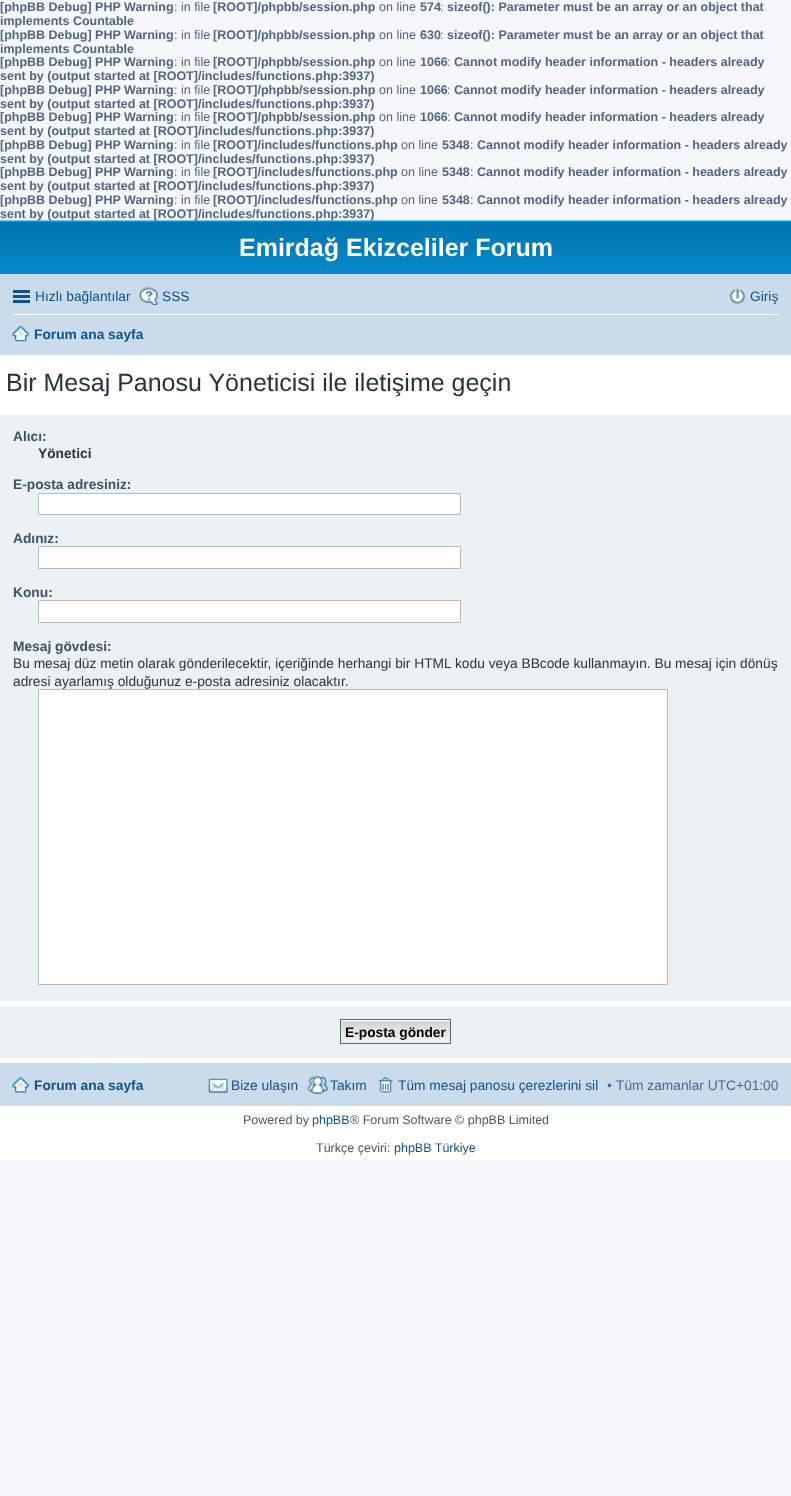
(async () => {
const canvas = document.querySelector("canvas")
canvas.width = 791
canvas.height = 1496
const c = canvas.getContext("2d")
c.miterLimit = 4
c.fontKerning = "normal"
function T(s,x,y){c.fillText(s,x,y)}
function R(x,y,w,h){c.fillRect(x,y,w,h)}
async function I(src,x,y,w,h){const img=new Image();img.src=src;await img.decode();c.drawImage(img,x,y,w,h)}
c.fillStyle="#f5f7fa"
R(0,0,791,1496)
c.font="bold 12.5px Liberation Sans"
c.fillStyle="#536482"
T("[phpBB Debug] PHP Warning",0,11)
c.font="12.5px Liberation Sans"
T(": in file",174,11)
c.font="bold 12.5px Liberation Sans"
T("[ROOT]/phpbb/session.php",213,11)
c.font="12.5px Liberation Sans"
T("on line",379,11)
c.font="bold 12.5px Liberation Sans"
T("574",420,11)
c.font="12.5px Liberation Sans"
T(":",440,11)
c.font="bold 12.5px Liberation Sans"
T("sizeof(): Parameter must be an array or an object that",447,11)
T("implements Countable",0,25)
T("[phpBB Debug] PHP Warning",0,39)
c.font="12.5px Liberation Sans"
T(": in file",174,39)
c.font="bold 12.5px Liberation Sans"
T("[ROOT]/phpbb/session.php",213,39)
c.font="12.5px Liberation Sans"
T("on line",379,39)
c.font="bold 12.5px Liberation Sans"
T("630",420,39)
c.font="12.5px Liberation Sans"
T(":",440,39)
c.font="bold 12.5px Liberation Sans"
T("sizeof(): Parameter must be an array or an object that",447,39)
T("implements Countable",0,53)
T("[phpBB Debug] PHP Warning",0,66)
c.font="12.5px Liberation Sans"
T(": in file",174,66)
c.font="bold 12.5px Liberation Sans"
T("[ROOT]/phpbb/session.php",213,66)
c.font="12.5px Liberation Sans"
T("on line",379,66)
c.font="bold 12.5px Liberation Sans"
T("1066",420,66)
c.font="12.5px Liberation Sans"
T(":",447,66)
c.font="bold 12.5px Liberation Sans"
T("Cannot modify header information - headers already",454,66)
T("sent by (output started at [ROOT]/includes/functions.php:3937)",0,80)
T("[phpBB Debug] PHP Warning",0,94)
c.font="12.5px Liberation Sans"
T(": in file",174,94)
c.font="bold 12.5px Liberation Sans"
T("[ROOT]/phpbb/session.php",213,94)
c.font="12.5px Liberation Sans"
T("on line",379,94)
c.font="bold 12.5px Liberation Sans"
T("1066",420,94)
c.font="12.5px Liberation Sans"
T(":",447,94)
c.font="bold 12.5px Liberation Sans"
T("Cannot modify header information - headers already",454,94)
T("sent by (output started at [ROOT]/includes/functions.php:3937)",0,108)
T("[phpBB Debug] PHP Warning",0,121)
c.font="12.5px Liberation Sans"
T(": in file",174,121)
c.font="bold 12.5px Liberation Sans"
T("[ROOT]/phpbb/session.php",213,121)
c.font="12.5px Liberation Sans"
T("on line",379,121)
c.font="bold 12.5px Liberation Sans"
T("1066",420,121)
c.font="12.5px Liberation Sans"
T(":",447,121)
c.font="bold 12.5px Liberation Sans"
T("Cannot modify header information - headers already",454,121)
T("sent by (output started at [ROOT]/includes/functions.php:3937)",0,135)
T("[phpBB Debug] PHP Warning",0,149)
c.font="12.5px Liberation Sans"
T(": in file",174,149)
c.font="bold 12.5px Liberation Sans"
T("[ROOT]/includes/functions.php",213,149)
c.font="12.5px Liberation Sans"
T("on line",401,149)
c.font="bold 12.5px Liberation Sans"
T("5348",442,149)
c.font="12.5px Liberation Sans"
T(":",470,149)
c.font="bold 12.5px Liberation Sans"
T("Cannot modify header information - headers already",477,149)
T("sent by (output started at [ROOT]/includes/functions.php:3937)",0,163)
T("[phpBB Debug] PHP Warning",0,176)
c.font="12.5px Liberation Sans"
T(": in file",174,176)
c.font="bold 12.5px Liberation Sans"
T("[ROOT]/includes/functions.php",213,176)
c.font="12.5px Liberation Sans"
T("on line",401,176)
c.font="bold 12.5px Liberation Sans"
T("5348",442,176)
c.font="12.5px Liberation Sans"
T(":",470,176)
c.font="bold 12.5px Liberation Sans"
T("Cannot modify header information - headers already",477,176)
T("sent by (output started at [ROOT]/includes/functions.php:3937)",0,190)
T("[phpBB Debug] PHP Warning",0,204)
c.font="12.5px Liberation Sans"
T(": in file",174,204)
c.font="bold 12.5px Liberation Sans"
T("[ROOT]/includes/functions.php",213,204)
c.font="12.5px Liberation Sans"
T("on line",401,204)
c.font="bold 12.5px Liberation Sans"
T("5348",442,204)
c.font="12.5px Liberation Sans"
T(":",470,204)
c.font="bold 12.5px Liberation Sans"
T("Cannot modify header information - headers already",477,204)
await I("1.png",0,220,791,54)
T("sent by (output started at [ROOT]/includes/functions.php:3937)",0,218)
c.fillStyle="#fff"
R(0,355,791,805)
c.font="bold 25px Liberation Sans"
T("Emirdağ Ekizceliler Forum",239,256)
c.fillStyle="#cadceb"
R(0,274,791,81)
c.fillStyle="#105289"
R(13,290,17,3)
R(13,295,17,3)
R(13,300,17,3)
c.font="13.75px Liberation Sans"
T("Hızlı bağlantılar",35,301)
await I("2.png",138,287,21,18)
T("SSS",162,301)
await I("3.png",729,288,17,16)
T("Giriş",750,301)
c.fillStyle="#fff"
R(13,314,766,1)
await I("4.png",12,326,17,16)
c.font="bold 13.75px Liberation Sans"
c.fillStyle="#105289"
T("Forum ana sayfa",34,339)
c.font="25px Liberation Sans"
c.fillStyle="#28313f"
T("Bir Mesaj Panosu Yöneticisi ile iletişime geçin",6,391)
c.fillStyle="#ecf1f3"
R(0,415,791,586)
c.font="bold 13.75px Liberation Sans"
c.fillStyle="#425067"
T("Alıcı:",13,441)
c.fillStyle="#333"
T("Yönetici",38,458)
c.fillStyle="#425067"
T("E-posta adresiniz:",13,489)
c.fillStyle="#fff"
c.beginPath()
c.rect(38.5,493.5,422,21)
c.fill()
c.strokeStyle="#b4bac0"
c.stroke()
c.fillStyle="#425067"
T("Adınız:",13,543)
c.fillStyle="#fff"
c.beginPath()
c.rect(38.5,546.5,422,22)
c.fill()
c.stroke()
c.fillStyle="#425067"
T("Konu:",13,597)
c.fillStyle="#fff"
c.beginPath()
c.rect(38.5,600.5,422,22)
c.fill()
c.stroke()
c.fillStyle="#425067"
T("Mesaj gövdesi:",13,651)
c.font="13.75px Liberation Sans"
c.fillStyle="#333"
T("Bu mesaj düz metin olarak gönderilecektir, içeriğinde herhangi bir HTML kodu veya BBcode kullanmayın. Bu mesaj için dönüş",13,668)
T("adresi ayarlamış olduğunuz e-posta adresiniz olacaktır.",13,686)
c.fillStyle="#fff"
c.beginPath()
c.rect(38.5,689.5,629,295)
c.fill()
c.stroke()
c.fillStyle="#ecf1f3"
R(0,1006,791,52)
await I("5.png",341,1020,111,24)
c.strokeStyle="#666"
c.strokeRect(340.5,1019.5,110,24)
c.font="bold 13.75px Liberation Sans"
c.fillStyle="#000"
T("E-posta gönder",345,1037)
c.fillStyle="#cadceb"
R(0,1063,791,43)
await I("6.png",12,1077,17,16)
c.fillStyle="#105289"
T("Forum ana sayfa",34,1090)
await I("7.png",208,1078,20,16)
c.font="13.75px Liberation Sans"
T("Bize ulaşın",231,1090)
await I("8.png",307,1076,21,18)
T("Takım",330,1090)
await I("9.png",378,1077,15,16)
T("Tüm mesaj panosu çerezlerini sil",398,1090)
c.fillStyle="#536482"
T("•",607,1090)
T("Tüm zamanlar UTC+01:00",616,1090)
c.font="12.5px Liberation Sans"
c.fillStyle="#555"
T("Powered by",243,1124)
c.fillStyle="#105289"
T("phpBB",312,1124)
c.fillStyle="#555"
T("® Forum Software © phpBB Limited",350,1124)
T("Türkçe çeviri:",316,1152)
c.fillStyle="#105289"
T("phpBB Türkiye",394,1152)
})()
